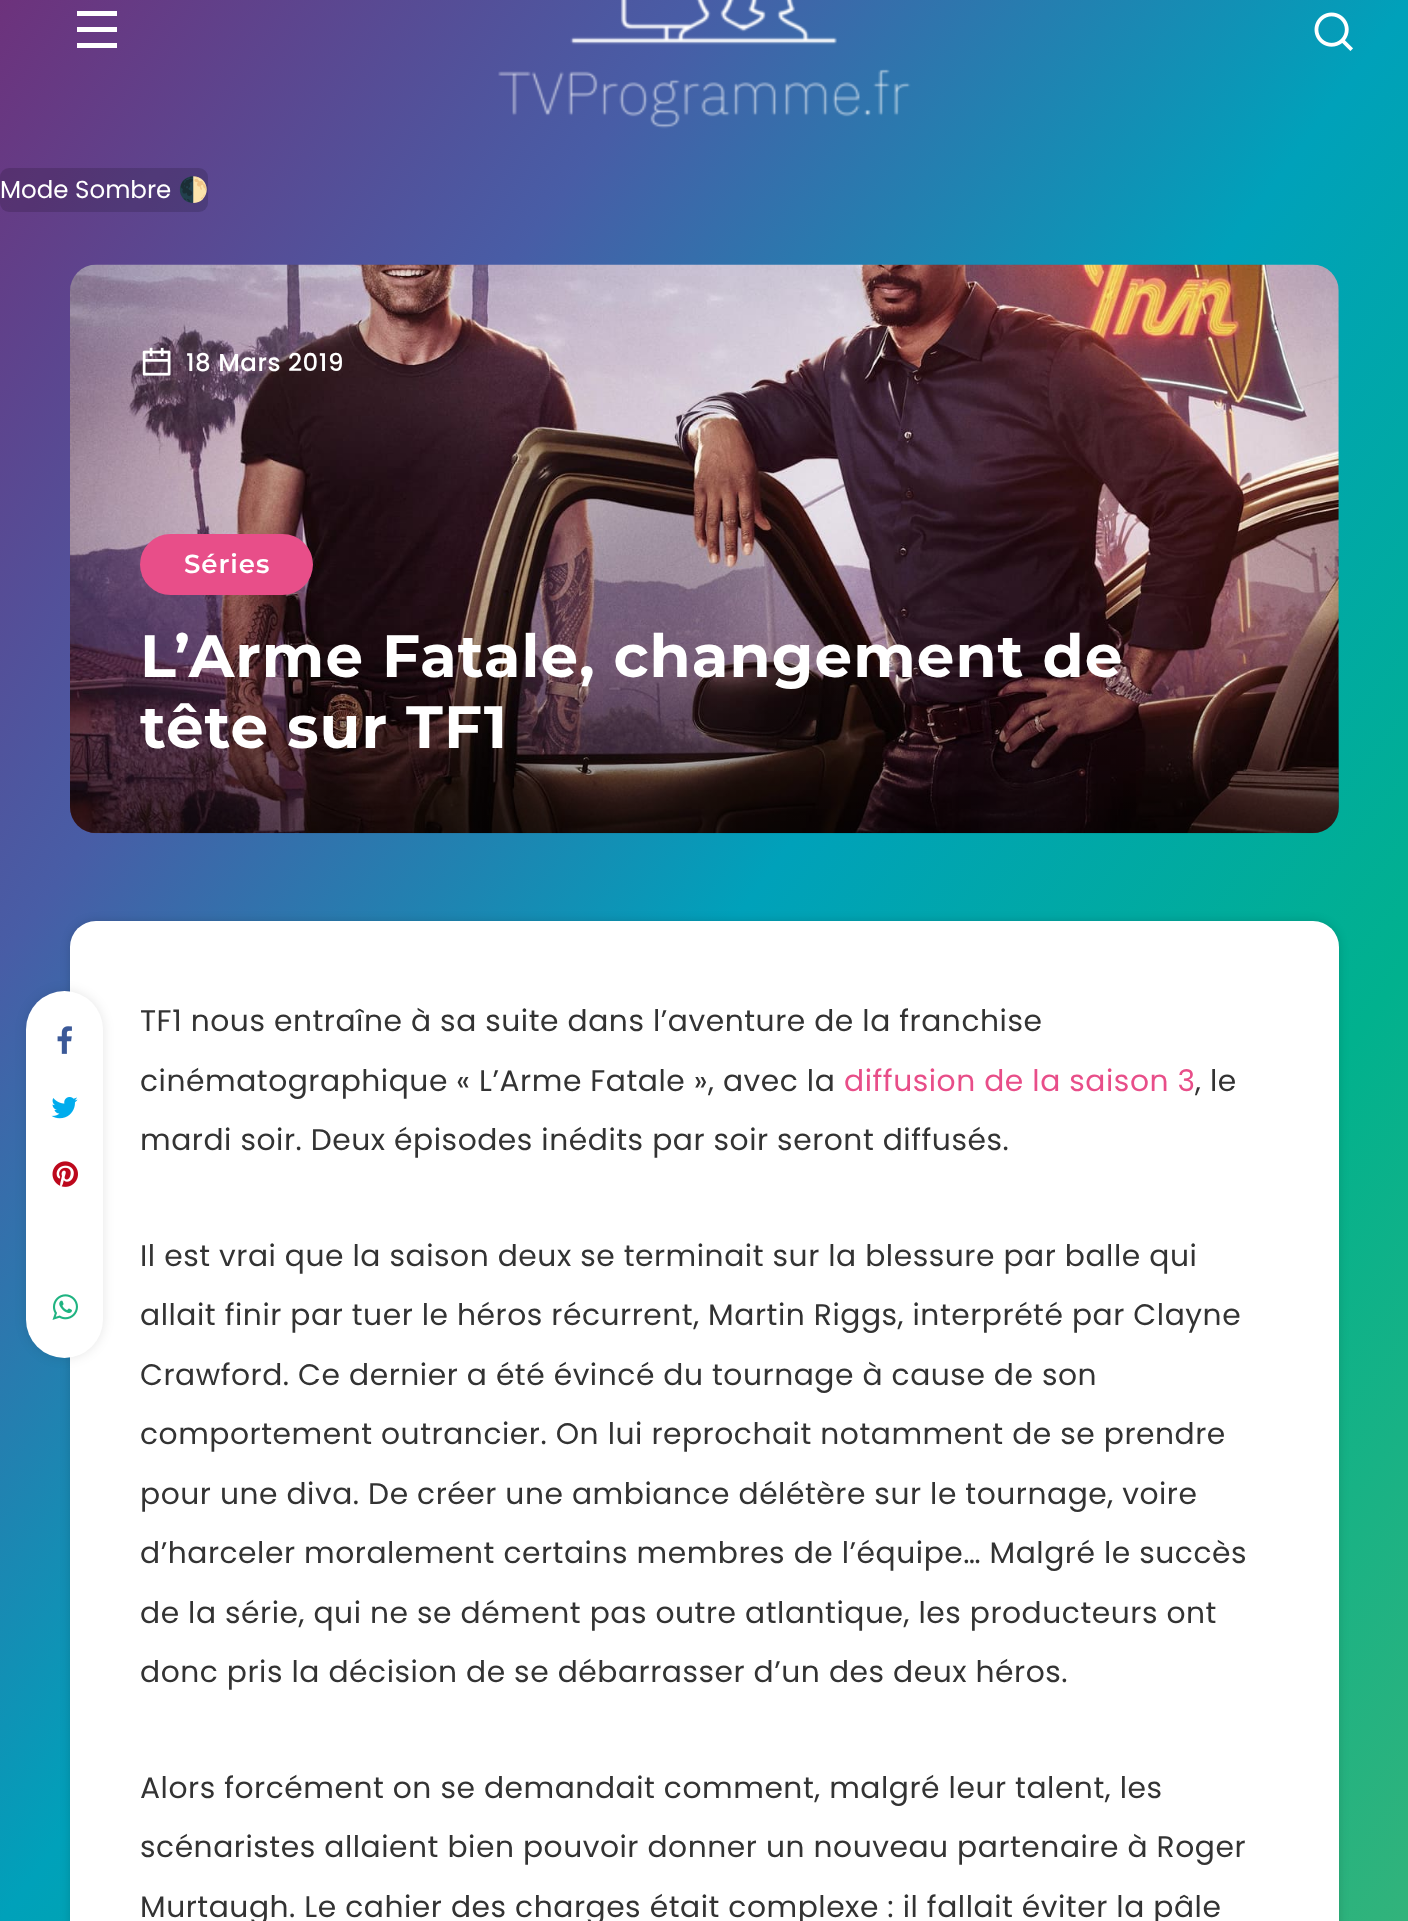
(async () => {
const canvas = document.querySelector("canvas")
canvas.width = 1408
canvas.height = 1921
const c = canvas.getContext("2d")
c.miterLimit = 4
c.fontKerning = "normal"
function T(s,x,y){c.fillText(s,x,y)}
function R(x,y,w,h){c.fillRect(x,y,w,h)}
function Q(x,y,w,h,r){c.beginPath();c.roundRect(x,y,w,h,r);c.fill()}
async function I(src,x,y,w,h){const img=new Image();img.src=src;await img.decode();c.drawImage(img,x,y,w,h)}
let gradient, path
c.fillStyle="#fff"
R(0,0,1408,1921)
gradient = c.createLinearGradient(-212,289,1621,1633)
gradient.addColorStop(0,"#6d327c")
gradient.addColorStop(.25,"#485da6")
gradient.addColorStop(.5,"#00a1ba")
gradient.addColorStop(.75,"#01b18e")
gradient.addColorStop(1,"#32b37b")
c.fillStyle = gradient
R(0,0,1408,1921)
c.fillStyle="#fff"
path = new Path2D("M77 11h40v5h-40zm0 16h40v5h-40zm0 16h40v5h-40z")
c.fill(path)
await I("1.png",498,0,413,129)
await I("2.png",1314,12,39,39)
c.fillStyle="#00000026"
Q(0,168,208,44,9)
c.font="24.5px Poppins"
c.fillStyle="#fff"
T("Mode Sombre",0,198)
c.font="24.5px Noto Color Emoji"
T("🌓",178,198)
await I("3.png",70,264,1269,570)
await I("4.png",142,347,29,29)
c.letterSpacing="0.53px"
c.font="500 24.5px Poppins"
T("18 Mars 2019",186,371)
c.fillStyle="#e84e89"
Q(140,534,173,61,30.5)
c.letterSpacing="1px"
c.font="600 26px Montserrat"
c.fillStyle="#fff"
T("Séries",184,573)
gradient = c.createLinearGradient(704,663,704,833)
gradient.addColorStop(0,"#00000000")
gradient.addColorStop(1,"#00000080")
c.fillStyle = gradient
c.beginPath()
c.roundRect(70,663,1269,170,[0,0,26,26])
c.fill()
c.letterSpacing="1.05px"
c.font="bold 59.5px Montserrat"
c.fillStyle="#fff"
T("L’Arme Fatale, changement de",140,677)
T("tête sur TF1",140,748)
c.fillStyle="#00000026"
c.filter="blur(5px)"
c.beginPath()
c.roundRect(70,921,1269,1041,26)
c.fill()
c.filter="none"
c.fillStyle="#fff"
Q(70,921,1269,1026,26)
c.fillStyle="#0000001a"
c.filter="blur(6px)"
c.beginPath()
c.roundRect(26,991,77,367,38.5)
c.fill()
c.filter="none"
c.fillStyle="#fff"
Q(26,991,77,367,38.5)
await I("5.png",57,1026,15,28)
await I("6.png",51,1097,27,22)
await I("7.png",52,1161,26,26)
await I("8.png",52,1294,26,26)
c.letterSpacing="0.53px"
c.font="29.75px Poppins"
c.fillStyle="#333"
T("TF1 nous entraîne à sa suite dans l’aventure de la franchise",140,1031)
T("cinématographique « L’Arme Fatale », avec la",140,1091)
c.fillStyle="#e84e89"
T("diffusion de la saison 3",844,1091)
c.fillStyle="#333"
T(", le",1195,1091)
T("mardi soir. Deux épisodes inédits par soir seront diffusés.",140,1150)
T("Il est vrai que la saison deux se terminait sur la blessure par balle qui",140,1266)
T("allait finir par tuer le héros récurrent, Martin Riggs, interprété par Clayne",140,1325)
T("Crawford. Ce dernier a été évincé du tournage à cause de son",140,1385)
T("comportement outrancier. On lui reprochait notamment de se prendre",140,1444)
T("pour une diva. De créer une ambiance délétère sur le tournage, voire",140,1504)
T("d’harceler moralement certains membres de l’équipe… Malgré le succès",140,1563)
T("de la série, qui ne se dément pas outre atlantique, les producteurs ont",140,1623)
T("donc pris la décision de se débarrasser d’un des deux héros.",140,1682)
T("Alors forcément on se demandait comment, malgré leur talent, les",140,1798)
T("scénaristes allaient bien pouvoir donner un nouveau partenaire à Roger",140,1857)
T("Murtaugh. Le cahier des charges était complexe : il fallait éviter la pâle",140,1917)
})()
